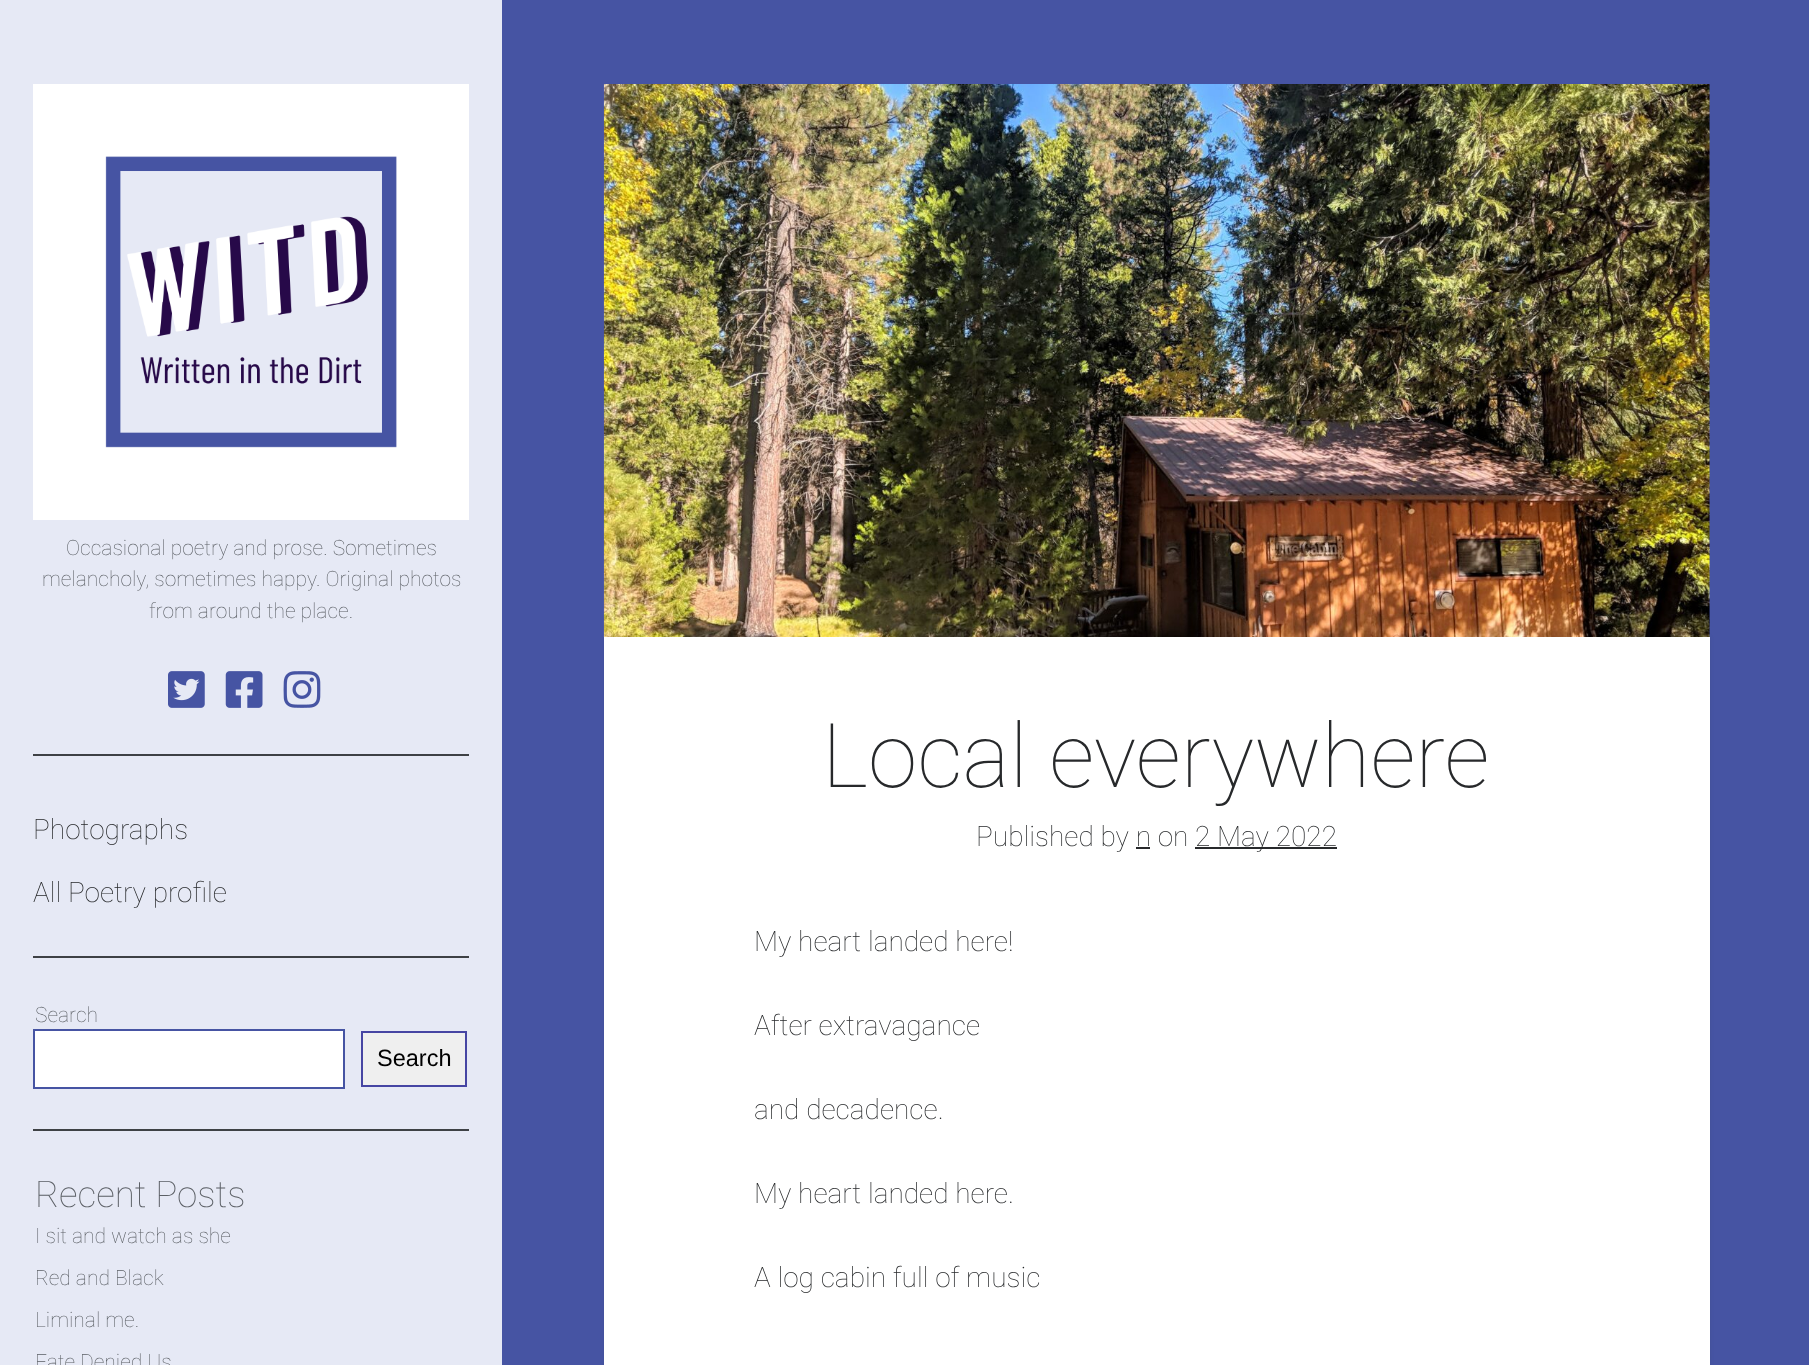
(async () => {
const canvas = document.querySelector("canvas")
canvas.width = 1809
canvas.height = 1365
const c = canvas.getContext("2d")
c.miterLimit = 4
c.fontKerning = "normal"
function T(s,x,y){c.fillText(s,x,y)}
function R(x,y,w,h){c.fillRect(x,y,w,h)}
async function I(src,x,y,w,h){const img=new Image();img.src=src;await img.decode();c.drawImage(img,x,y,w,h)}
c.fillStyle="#e6e9f5"
R(0,0,1809,1365)
await I("1.png",33,84,436,436)
c.font="100 21px Roboto"
c.fillStyle="#5c6066"
T("Occasional poetry and prose. Sometimes",66,555)
T("melancholy, sometimes happy. Original photos",42,586)
T("from around the place.",149,618)
await I("2.png",168,671,37,37)
await I("3.png",225,671,38,37)
await I("4.png",283,671,38,37)
c.fillStyle="#3e4145"
R(33,754,436,2)
c.font="100 28px Roboto"
c.fillStyle="#27292b"
T("Photographs",33,839)
T("All Poetry profile",33,902)
c.fillStyle="#3e4145"
R(33,956,436,2)
c.font="100 21px Roboto"
c.fillStyle="#5c6066"
T("Search",35,1022)
c.fillStyle="#fff"
c.beginPath()
c.rect(34,1030,310,58)
c.fill()
c.strokeStyle="#4654a3"
c.lineWidth=2
c.stroke()
c.fillStyle="#efefef"
c.beginPath()
c.rect(362,1032,104,54)
c.fill()
c.strokeStyle="#4645a3"
c.stroke()
c.font="23.5px Liberation Sans"
c.fillStyle="#000"
T("Search",377,1066)
c.fillStyle="#3e4145"
R(33,1129,436,2)
c.font="100 36.75px Roboto"
c.fillStyle="#5c6066"
T("Recent Posts",35,1207)
c.font="100 21px Roboto"
T("I sit and watch as she",35,1243)
T("Red and Black",35,1285)
T("Liminal me.",35,1327)
T("Fate Denied Us",35,1369)
c.fillStyle="#4654a3"
R(502,0,1307,1365)
c.fillStyle="#272b2f1a"
c.filter="blur(2px)"
c.beginPath()
c.rect(604,637,1106,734)
c.fill()
c.filter="none"
await I("5.png",603,84,1107,553)
c.fillStyle="#fff"
R(604,637,1106,728)
c.font="100 89.25px Roboto"
c.fillStyle="#27292b"
T("Local everywhere",822,787)
c.font="100 28px Roboto"
T("Published by n on",976,846)
R(1136,847,14,2)
R(1195,847,142,2)
T("2 May 2022",1195,846)
T("My heart landed here!",754,951)
T("After extravagance",754,1035)
T("and decadence.",754,1119)
T("My heart landed here.",754,1203)
T("A log cabin full of music",754,1287)
})()
